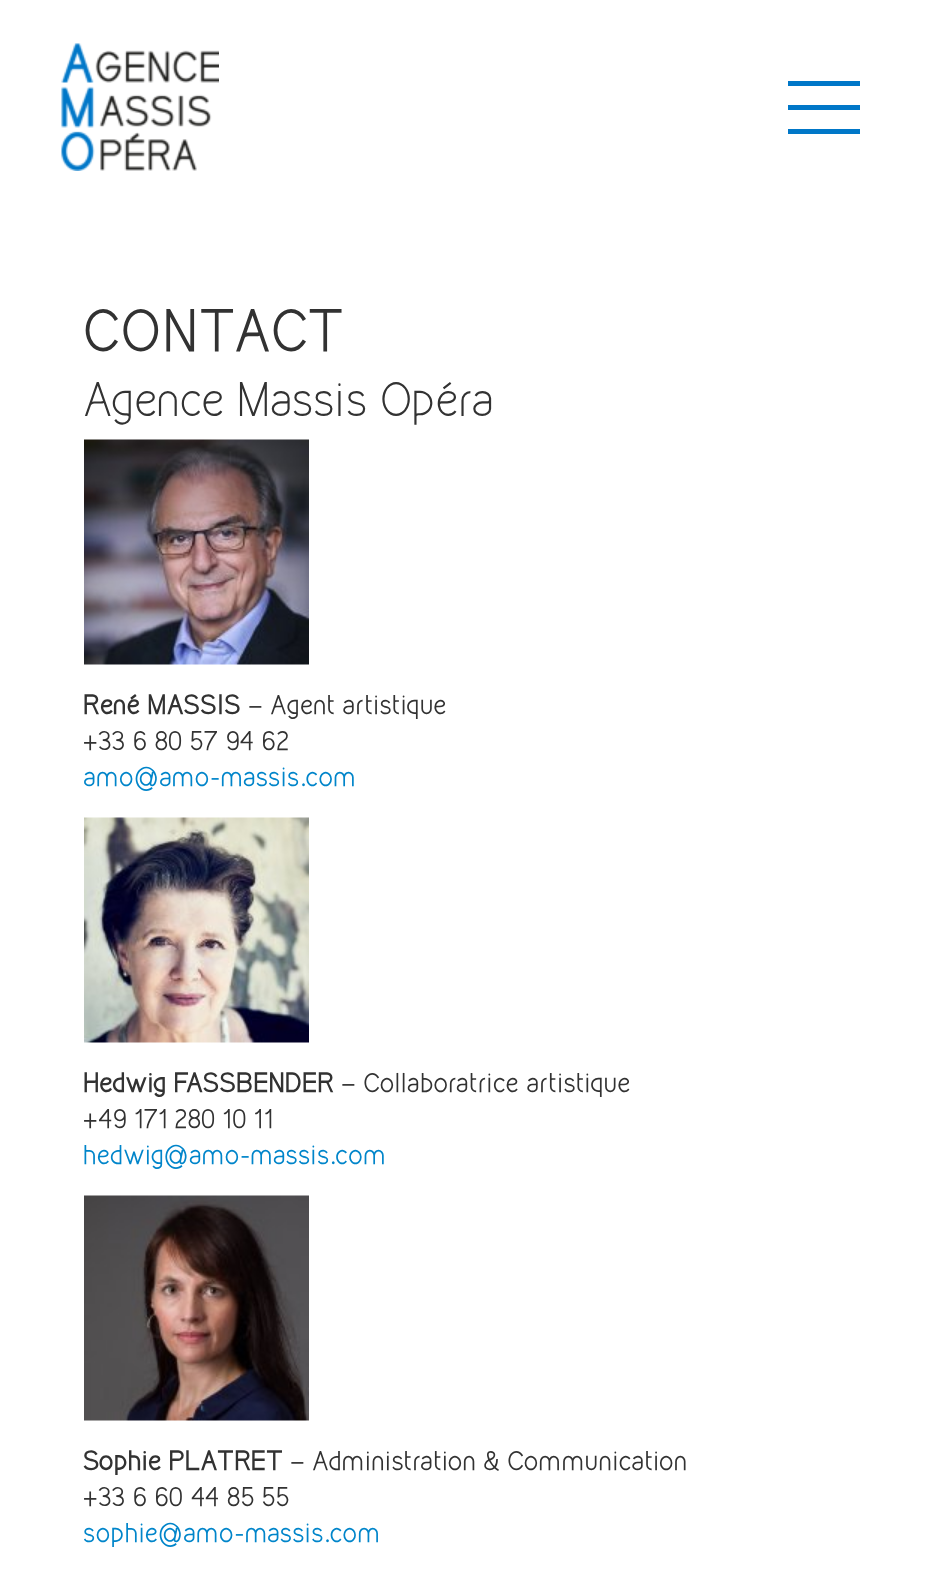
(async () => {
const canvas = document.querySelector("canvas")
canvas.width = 931
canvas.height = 1573
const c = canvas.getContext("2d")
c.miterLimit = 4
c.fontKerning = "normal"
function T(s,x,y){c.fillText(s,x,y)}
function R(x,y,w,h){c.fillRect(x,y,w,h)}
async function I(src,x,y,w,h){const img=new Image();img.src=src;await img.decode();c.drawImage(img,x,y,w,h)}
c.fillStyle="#fff"
R(0,0,931,1573)
await I("1.png",61,43,158,128)
c.fillStyle="#0077c8"
R(788,81,72,5)
R(788,105,72,5)
R(788,129,72,5)
c.font="53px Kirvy"
c.fillStyle="#323232"
T("CONTACT",83,351)
c.font="300 43.25px Kirvy"
T("Agence Massis Opéra",83,416)
await I("2.png",84,439,225,226)
c.font="bold 24px Kirvy"
T("René MASSIS",83,714)
c.font="24px Kirvy"
T("– Agent artistique",248,714)
T("+33 6 80 57 94 62",83,750)
c.fillStyle="#0085ca"
T("amo@amo-massis.com",83,786)
await I("3.png",84,817,225,226)
c.font="bold 24px Kirvy"
c.fillStyle="#323232"
T("Hedwig FASSBENDER",83,1092)
c.font="24px Kirvy"
T("– Collaboratrice artistique",341,1092)
T("+49 171 280 10 11",83,1128)
c.fillStyle="#0085ca"
T("hedwig@amo-massis.com",83,1164)
await I("4.png",84,1195,225,226)
c.font="bold 24px Kirvy"
c.fillStyle="#323232"
T("Sophie PLATRET",83,1470)
c.font="24px Kirvy"
T("– Administration & Communication",290,1470)
T("+33 6 60 44 85 55",83,1506)
c.fillStyle="#0085ca"
T("sophie@amo-massis.com",83,1542)
})()
